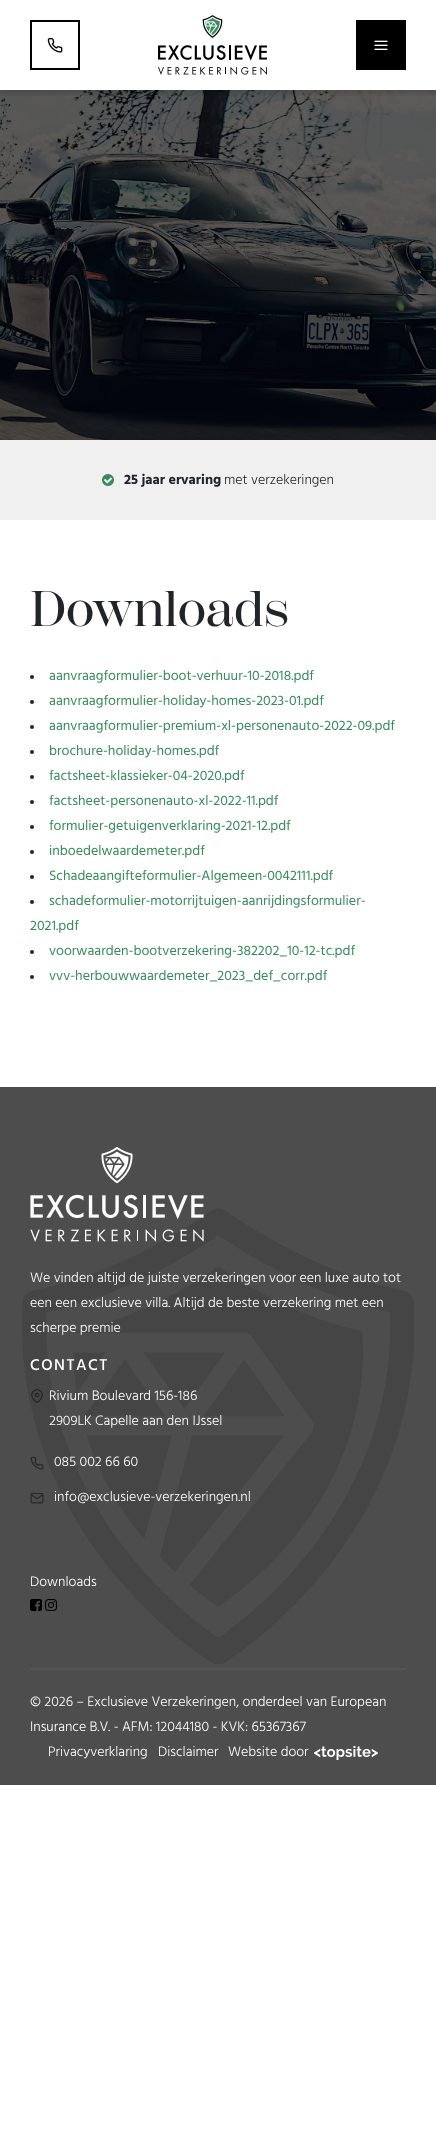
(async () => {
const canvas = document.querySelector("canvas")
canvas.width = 436
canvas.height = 2149
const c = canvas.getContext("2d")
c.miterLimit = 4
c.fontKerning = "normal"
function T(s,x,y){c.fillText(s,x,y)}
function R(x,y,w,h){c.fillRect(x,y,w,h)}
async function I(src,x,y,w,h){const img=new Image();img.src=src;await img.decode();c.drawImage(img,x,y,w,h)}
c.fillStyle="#fff"
R(0,0,436,2149)
await I("4.png",0,90,436,350)
c.save()
c.beginPath()
c.rect(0,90,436,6)
c.clip()
c.fillStyle="#00000029"
c.filter="blur(3px)"
c.beginPath()
c.rect(0,3,436,90)
c.fill()
c.filter="none"
c.restore()
c.strokeStyle="#000"
c.lineWidth=2
c.strokeRect(31,21,48,48)
await I("1.png",47,38,16,15)
await I("2.png",158,15,109,60)
c.fillStyle="#000"
R(356,20,50,50)
await I("3.png",374,40,14,10)
c.fillStyle="#f0f0f0"
R(0,440,436,80)
await I("5.png",102,474,12,12)
c.font="bold 14px Hind"
c.fillStyle="#212529"
T("25 jaar ervaring",124,484)
c.font="300 14px Hind"
T("met verzekeringen",224,484)
c.font="500 50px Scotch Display"
T("Downloads",30,626)
c.beginPath()
c.arc(32,677,2,0,7)
c.fill()
c.font="14px Hind"
c.fillStyle="#388b5d"
T("aanvraagformulier-boot-verhuur-10-2018.pdf",49,680)
c.fillStyle="#212529"
c.beginPath()
c.arc(32,702,2,0,7)
c.fill()
c.fillStyle="#388b5d"
T("aanvraagformulier-holiday-homes-2023-01.pdf",49,705)
c.fillStyle="#212529"
c.beginPath()
c.arc(32,727,2,0,7)
c.fill()
c.fillStyle="#388b5d"
T("aanvraagformulier-premium-xl-personenauto-2022-09.pdf",49,730)
c.fillStyle="#212529"
c.beginPath()
c.arc(32,752,2,0,7)
c.fill()
c.fillStyle="#388b5d"
T("brochure-holiday-homes.pdf",49,755)
c.fillStyle="#212529"
c.beginPath()
c.arc(32,777,2,0,7)
c.fill()
c.fillStyle="#388b5d"
T("factsheet-klassieker-04-2020.pdf",49,780)
c.fillStyle="#212529"
c.beginPath()
c.arc(32,802,2,0,7)
c.fill()
c.fillStyle="#388b5d"
T("factsheet-personenauto-xl-2022-11.pdf",49,805)
c.fillStyle="#212529"
c.beginPath()
c.arc(32,827,2,0,7)
c.fill()
c.fillStyle="#388b5d"
T("formulier-getuigenverklaring-2021-12.pdf",49,830)
c.fillStyle="#212529"
c.beginPath()
c.arc(32,852,2,0,7)
c.fill()
c.fillStyle="#388b5d"
T("inboedelwaardemeter.pdf",49,855)
c.fillStyle="#212529"
c.beginPath()
c.arc(32,877,2,0,7)
c.fill()
c.fillStyle="#388b5d"
T("Schadeaangifteformulier-Algemeen-0042111.pdf",49,880)
c.fillStyle="#212529"
c.beginPath()
c.arc(32,902,2,0,7)
c.fill()
c.fillStyle="#388b5d"
T("schadeformulier-motorrijtuigen-aanrijdingsformulier-",49,905)
T("2021.pdf",30,930)
c.fillStyle="#212529"
c.beginPath()
c.arc(32,952,2,0,7)
c.fill()
c.fillStyle="#388b5d"
T("voorwaarden-bootverzekering-382202_10-12-tc.pdf",49,955)
c.fillStyle="#212529"
c.beginPath()
c.arc(32,977,2,0,7)
c.fill()
c.fillStyle="#388b5d"
T("vvv-herbouwwaardemeter_2023_def_corr.pdf",49,980)
c.fillStyle="#4d4d4d"
R(0,1087,436,698)
await I("6.png",22,1208,392,456)
await I("7.png",30,1147,174,95)
c.font="300 14px Hind"
c.fillStyle="#fff"
T("We vinden altijd de juiste verzekeringen voor een luxe auto tot",30,1282)
T("een een exclusieve villa. Altijd de beste verzekering met een",30,1307)
T("scherpe premie",30,1332)
c.letterSpacing="1.5px"
c.font="500 16px Hind"
T("CONTACT",30,1370)
await I("8.png",31,1389,12,14)
c.letterSpacing="0px"
c.font="300 14px Hind"
T("Rivium Boulevard 156-186",49,1400)
T("2909LK Capelle aan den IJssel",49,1425)
await I("9.png",30,1456,14,14)
T("085 002 66 60",54,1466)
await I("10.png",30,1493,14,11)
T("info@exclusieve-verzekeringen.nl",54,1501)
T("Downloads",30,1586)
await I("11.png",30,1599,12,12)
await I("12.png",45,1599,12,12)
c.fillStyle="#555"
R(30,1668,376,2)
c.fillStyle="#fff"
T("© 2026 – Exclusieve Verzekeringen, onderdeel van European",30,1706)
T("Insurance B.V. - AFM: 12044180 - KVK: 65367367",30,1731)
T("Privacyverklaring",48,1756)
T("Disclaimer",158,1756)
T("Website door",228,1756)
await I("13.png",314,1746,64,14)
})()
